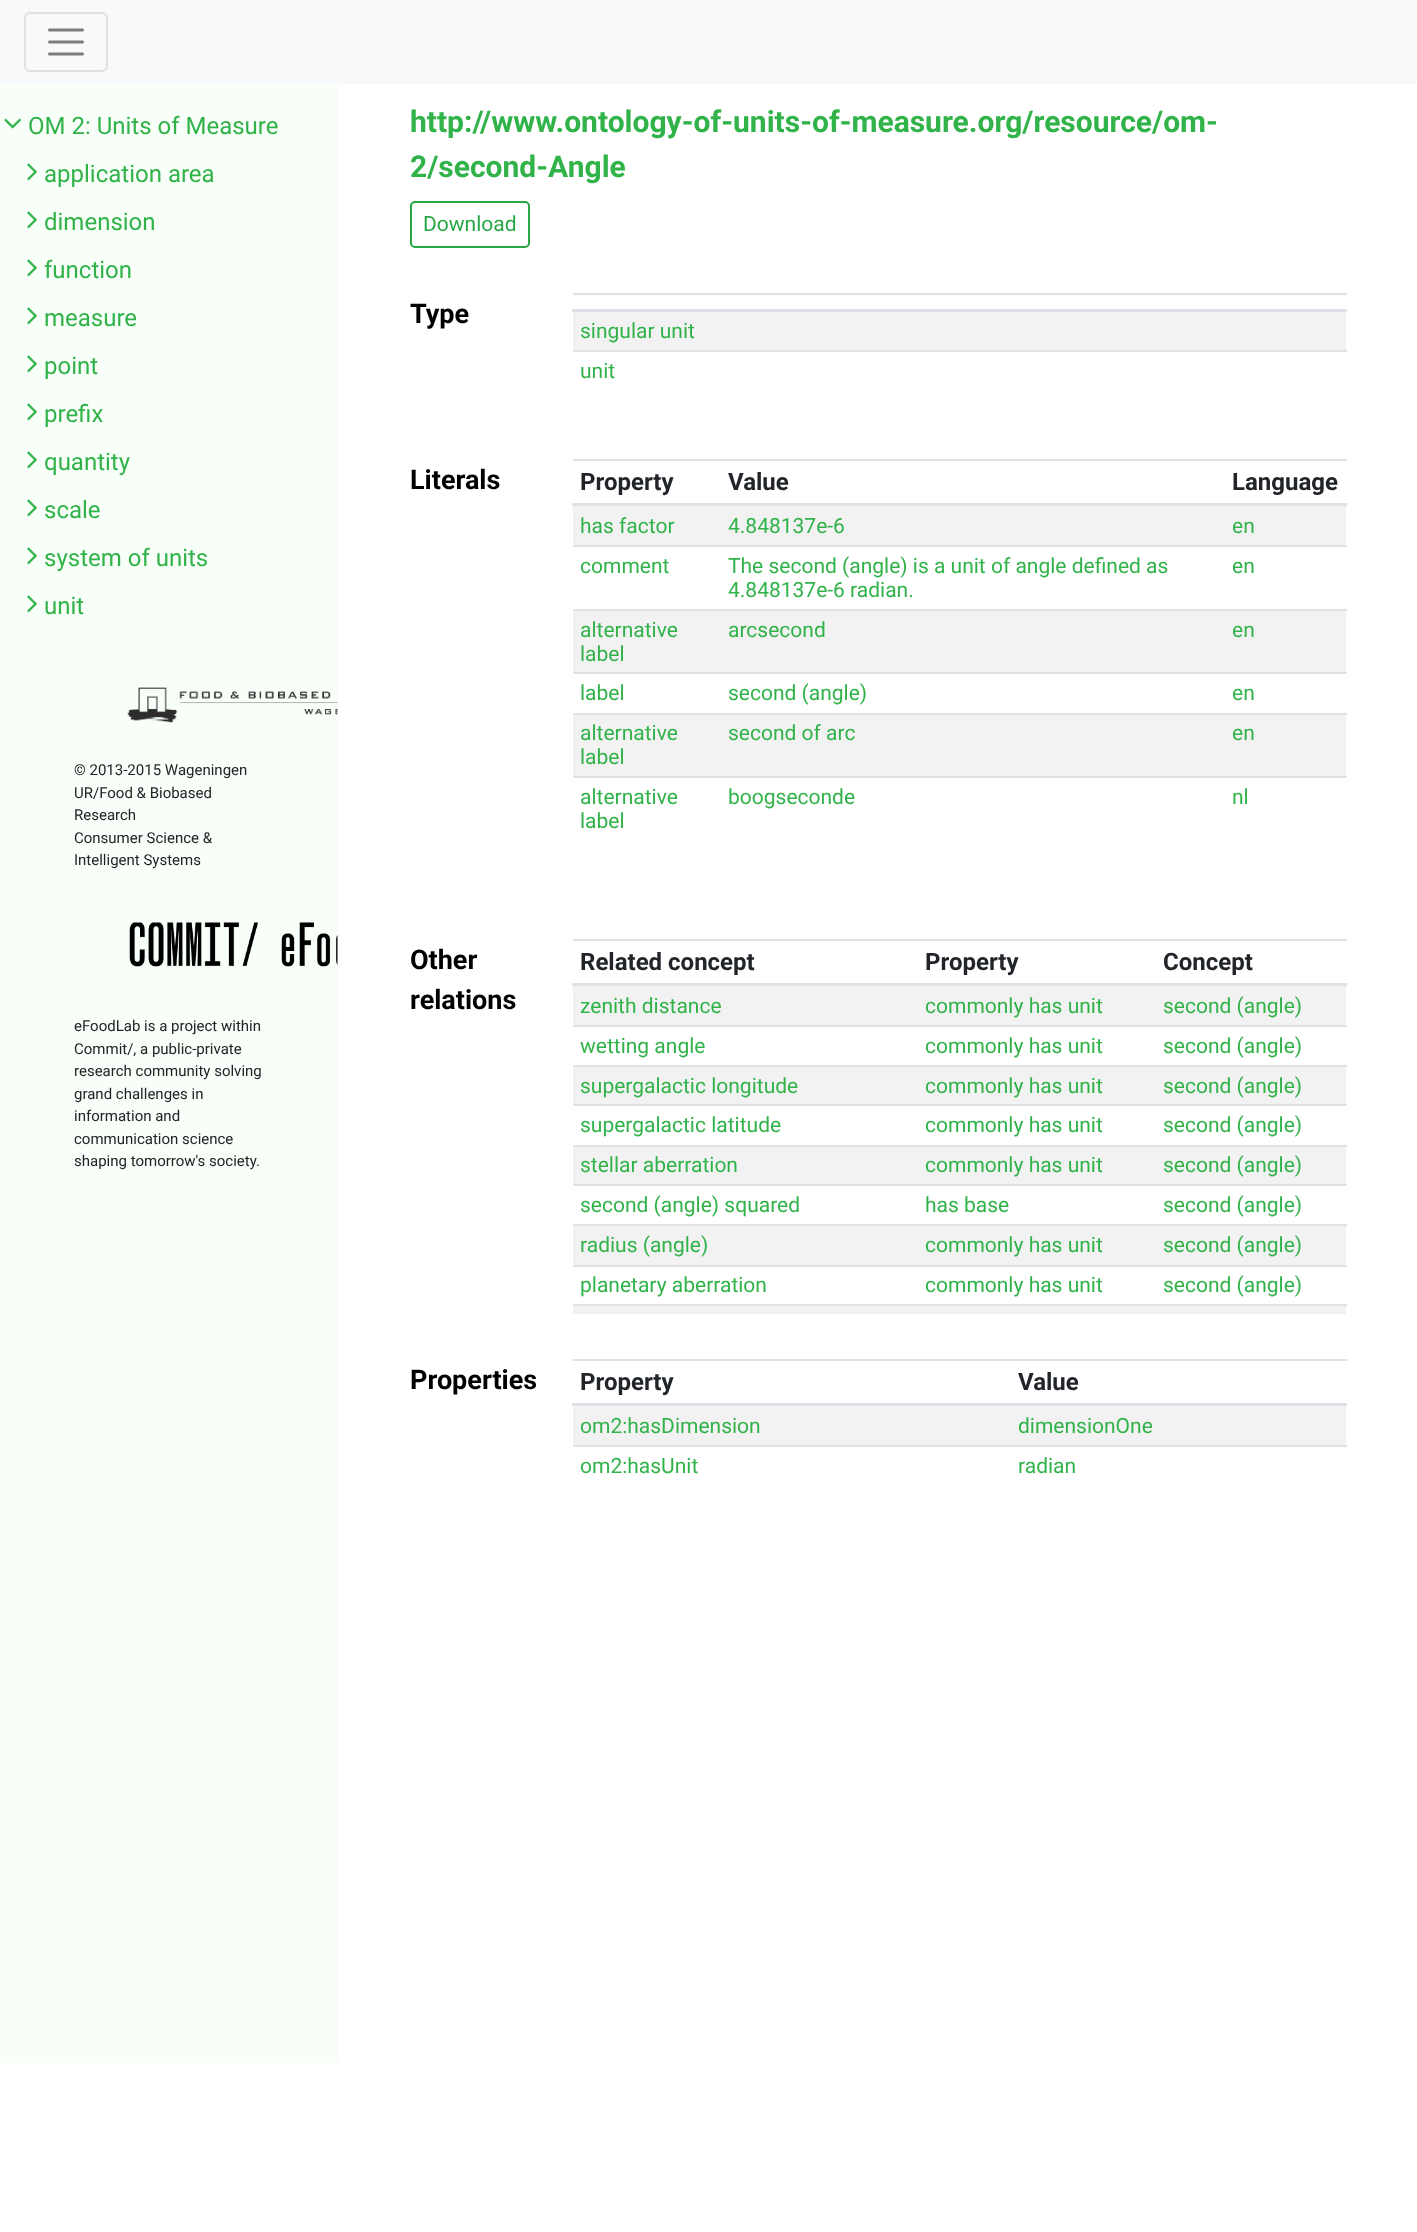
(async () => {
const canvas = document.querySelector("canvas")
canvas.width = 1417
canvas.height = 2232
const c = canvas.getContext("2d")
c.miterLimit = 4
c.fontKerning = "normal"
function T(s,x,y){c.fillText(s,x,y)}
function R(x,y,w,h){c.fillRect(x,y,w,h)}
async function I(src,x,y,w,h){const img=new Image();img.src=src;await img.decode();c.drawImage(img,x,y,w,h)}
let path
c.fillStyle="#fff"
R(0,0,1417,2232)
c.fillStyle="#f8f9fa"
R(0,0,1417,84)
c.beginPath()
c.roundRect(25,13,82,58,5)
c.strokeStyle="#dfe0e1"
c.lineWidth=2
c.stroke()
path = new Path2D("M49.5 30h33m-33 12h33m-33 12h33")
c.strokeStyle="#7c7d7d"
c.lineWidth=3
c.lineCap="round"
c.stroke(path)
c.fillStyle="#f8fff8"
R(0,84,338,1979)
await I("1.png",4,118,17,11)
c.font="24px Roboto"
c.fillStyle="#31b34a"
T("OM 2: Units of Measure",28,134)
await I("2.png",27,163,10,18)
T("application area",44,182)
await I("2.png",27,211,10,18)
T("dimension",44,230)
await I("2.png",27,259,10,18)
T("function",44,278)
await I("2.png",27,307,10,18)
T("measure",44,326)
await I("2.png",27,355,10,18)
T("point",44,374)
await I("2.png",27,403,10,18)
T("prefix",44,422)
await I("2.png",27,451,10,18)
T("quantity",44,470)
await I("2.png",27,499,10,18)
T("scale",44,518)
await I("2.png",27,547,10,18)
T("system of units",44,566)
await I("2.png",27,595,10,18)
T("unit",44,614)
await I("3.png",127,687,211,36)
c.font="15px Roboto"
c.fillStyle="#212529"
T("© 2013-2015 Wageningen",74,775)
T("UR/Food & Biobased",74,798)
T("Research",74,820)
T("Consumer Science &",74,843)
T("Intelligent Systems",74,865)
await I("4.png",129,922,209,45)
T("eFoodLab is a project within",74,1031)
T("Commit/, a public-private",74,1054)
T("research community solving",74,1076)
T("grand challenges in",74,1099)
T("information and",74,1121)
T("communication science",74,1144)
T("shaping tomorrow's society.",74,1166)
c.font="bold 30px Roboto"
c.fillStyle="#31b34a"
T("http://www.ontology-of-units-of-measure.org/resource/om-",410,132)
T("2/second-Angle",410,177)
c.beginPath()
c.roundRect(411,202,118,45,4)
c.strokeStyle="#28a745"
c.lineWidth=2
c.stroke()
c.font="21px Roboto"
c.fillStyle="#28a745"
T("Download",423,231)
c.font="bold 27px Roboto"
c.fillStyle="#000"
T("Type",410,323)
c.fillStyle="#dee2e6"
R(573,293,774,2)
R(572,309,775,3)
c.fillStyle="#f2f2f2"
R(573,312,773,38)
c.font="21px Roboto"
c.fillStyle="#31b34a"
T("singular unit",580,338)
c.fillStyle="#dee2e6"
R(573,350,774,2)
c.fillStyle="#31b34a"
T("unit",580,378)
c.font="bold 27px Roboto"
c.fillStyle="#000"
T("Literals",410,489)
c.font="bold 24px Roboto"
c.fillStyle="#212529"
T("Property",580,490)
T("Value",728,490)
c.fillStyle="#dee2e6"
R(573,459,774,2)
R(572,503,775,3)
c.fillStyle="#212529"
T("Language",1232,490)
c.fillStyle="#f2f2f2"
R(573,506,773,39)
c.font="21px Roboto"
c.fillStyle="#31b34a"
T("has factor",580,533)
T("4.848137e-6",728,533)
T("en",1232,533)
T("comment",580,573)
T("The second (angle) is a unit of angle defined as",728,573)
T("4.848137e-6 radian.",728,597)
c.fillStyle="#dee2e6"
R(573,545,774,2)
c.fillStyle="#31b34a"
T("en",1232,573)
c.fillStyle="#f2f2f2"
R(573,611,773,61)
c.fillStyle="#31b34a"
T("alternative",580,637)
T("label",580,661)
T("arcsecond",728,637)
c.fillStyle="#dee2e6"
R(573,609,774,2)
c.fillStyle="#31b34a"
T("en",1232,637)
T("label",580,700)
T("second (angle)",728,700)
c.fillStyle="#dee2e6"
R(573,672,774,2)
c.fillStyle="#31b34a"
T("en",1232,700)
c.fillStyle="#f2f2f2"
R(573,715,773,61)
c.fillStyle="#31b34a"
T("alternative",580,740)
T("label",580,764)
T("second of arc",728,740)
c.fillStyle="#dee2e6"
R(573,713,774,2)
c.fillStyle="#31b34a"
T("en",1232,740)
T("alternative",580,804)
T("label",580,828)
T("boogseconde",728,804)
c.fillStyle="#dee2e6"
R(573,776,774,2)
c.fillStyle="#31b34a"
T("nl",1232,804)
c.font="bold 27px Roboto"
c.fillStyle="#000"
T("Other",410,969)
T("relations",410,1009)
c.font="bold 24px Roboto"
c.fillStyle="#212529"
T("Related concept",580,970)
T("Property",925,970)
c.fillStyle="#dee2e6"
R(573,939,774,2)
R(572,983,775,3)
c.fillStyle="#212529"
T("Concept",1163,970)
c.fillStyle="#f2f2f2"
R(573,986,773,39)
c.font="21px Roboto"
c.fillStyle="#31b34a"
T("zenith distance",580,1013)
T("commonly has unit",925,1013)
T("second (angle)",1163,1013)
T("wetting angle",580,1053)
T("commonly has unit",925,1053)
c.fillStyle="#dee2e6"
R(573,1025,774,2)
c.fillStyle="#31b34a"
T("second (angle)",1163,1053)
c.fillStyle="#f2f2f2"
R(573,1067,773,37)
c.fillStyle="#31b34a"
T("supergalactic longitude",580,1093)
T("commonly has unit",925,1093)
c.fillStyle="#dee2e6"
R(573,1065,774,2)
c.fillStyle="#31b34a"
T("second (angle)",1163,1093)
T("supergalactic latitude",580,1132)
T("commonly has unit",925,1132)
c.fillStyle="#dee2e6"
R(573,1104,774,2)
c.fillStyle="#31b34a"
T("second (angle)",1163,1132)
c.fillStyle="#f2f2f2"
R(573,1147,773,37)
c.fillStyle="#31b34a"
T("stellar aberration",580,1172)
T("commonly has unit",925,1172)
c.fillStyle="#dee2e6"
R(573,1145,774,2)
c.fillStyle="#31b34a"
T("second (angle)",1163,1172)
T("second (angle) squared",580,1212)
T("has base",925,1212)
c.fillStyle="#dee2e6"
R(573,1184,774,2)
c.fillStyle="#31b34a"
T("second (angle)",1163,1212)
c.fillStyle="#f2f2f2"
R(573,1226,773,39)
c.fillStyle="#31b34a"
T("radius (angle)",580,1252)
T("commonly has unit",925,1252)
c.fillStyle="#dee2e6"
R(573,1224,774,2)
c.fillStyle="#31b34a"
T("second (angle)",1163,1252)
T("planetary aberration",580,1292)
T("commonly has unit",925,1292)
c.fillStyle="#dee2e6"
R(573,1265,774,2)
c.fillStyle="#31b34a"
T("second (angle)",1163,1292)
c.fillStyle="#f2f2f2"
R(573,1306,773,8)
c.fillStyle="#dee2e6"
R(573,1304,774,2)
c.font="bold 27px Roboto"
c.fillStyle="#000"
T("Properties",410,1389)
c.font="bold 24px Roboto"
c.fillStyle="#212529"
T("Property",580,1390)
c.fillStyle="#dee2e6"
R(573,1359,774,2)
R(572,1403,775,3)
c.fillStyle="#212529"
T("Value",1018,1390)
c.fillStyle="#f2f2f2"
R(573,1406,773,39)
c.font="21px Roboto"
c.fillStyle="#31b34a"
T("om2:hasDimension",580,1433)
T("dimensionOne",1018,1433)
T("om2:hasUnit",580,1473)
c.fillStyle="#dee2e6"
R(573,1445,774,2)
c.fillStyle="#31b34a"
T("radian",1018,1473)
})()
